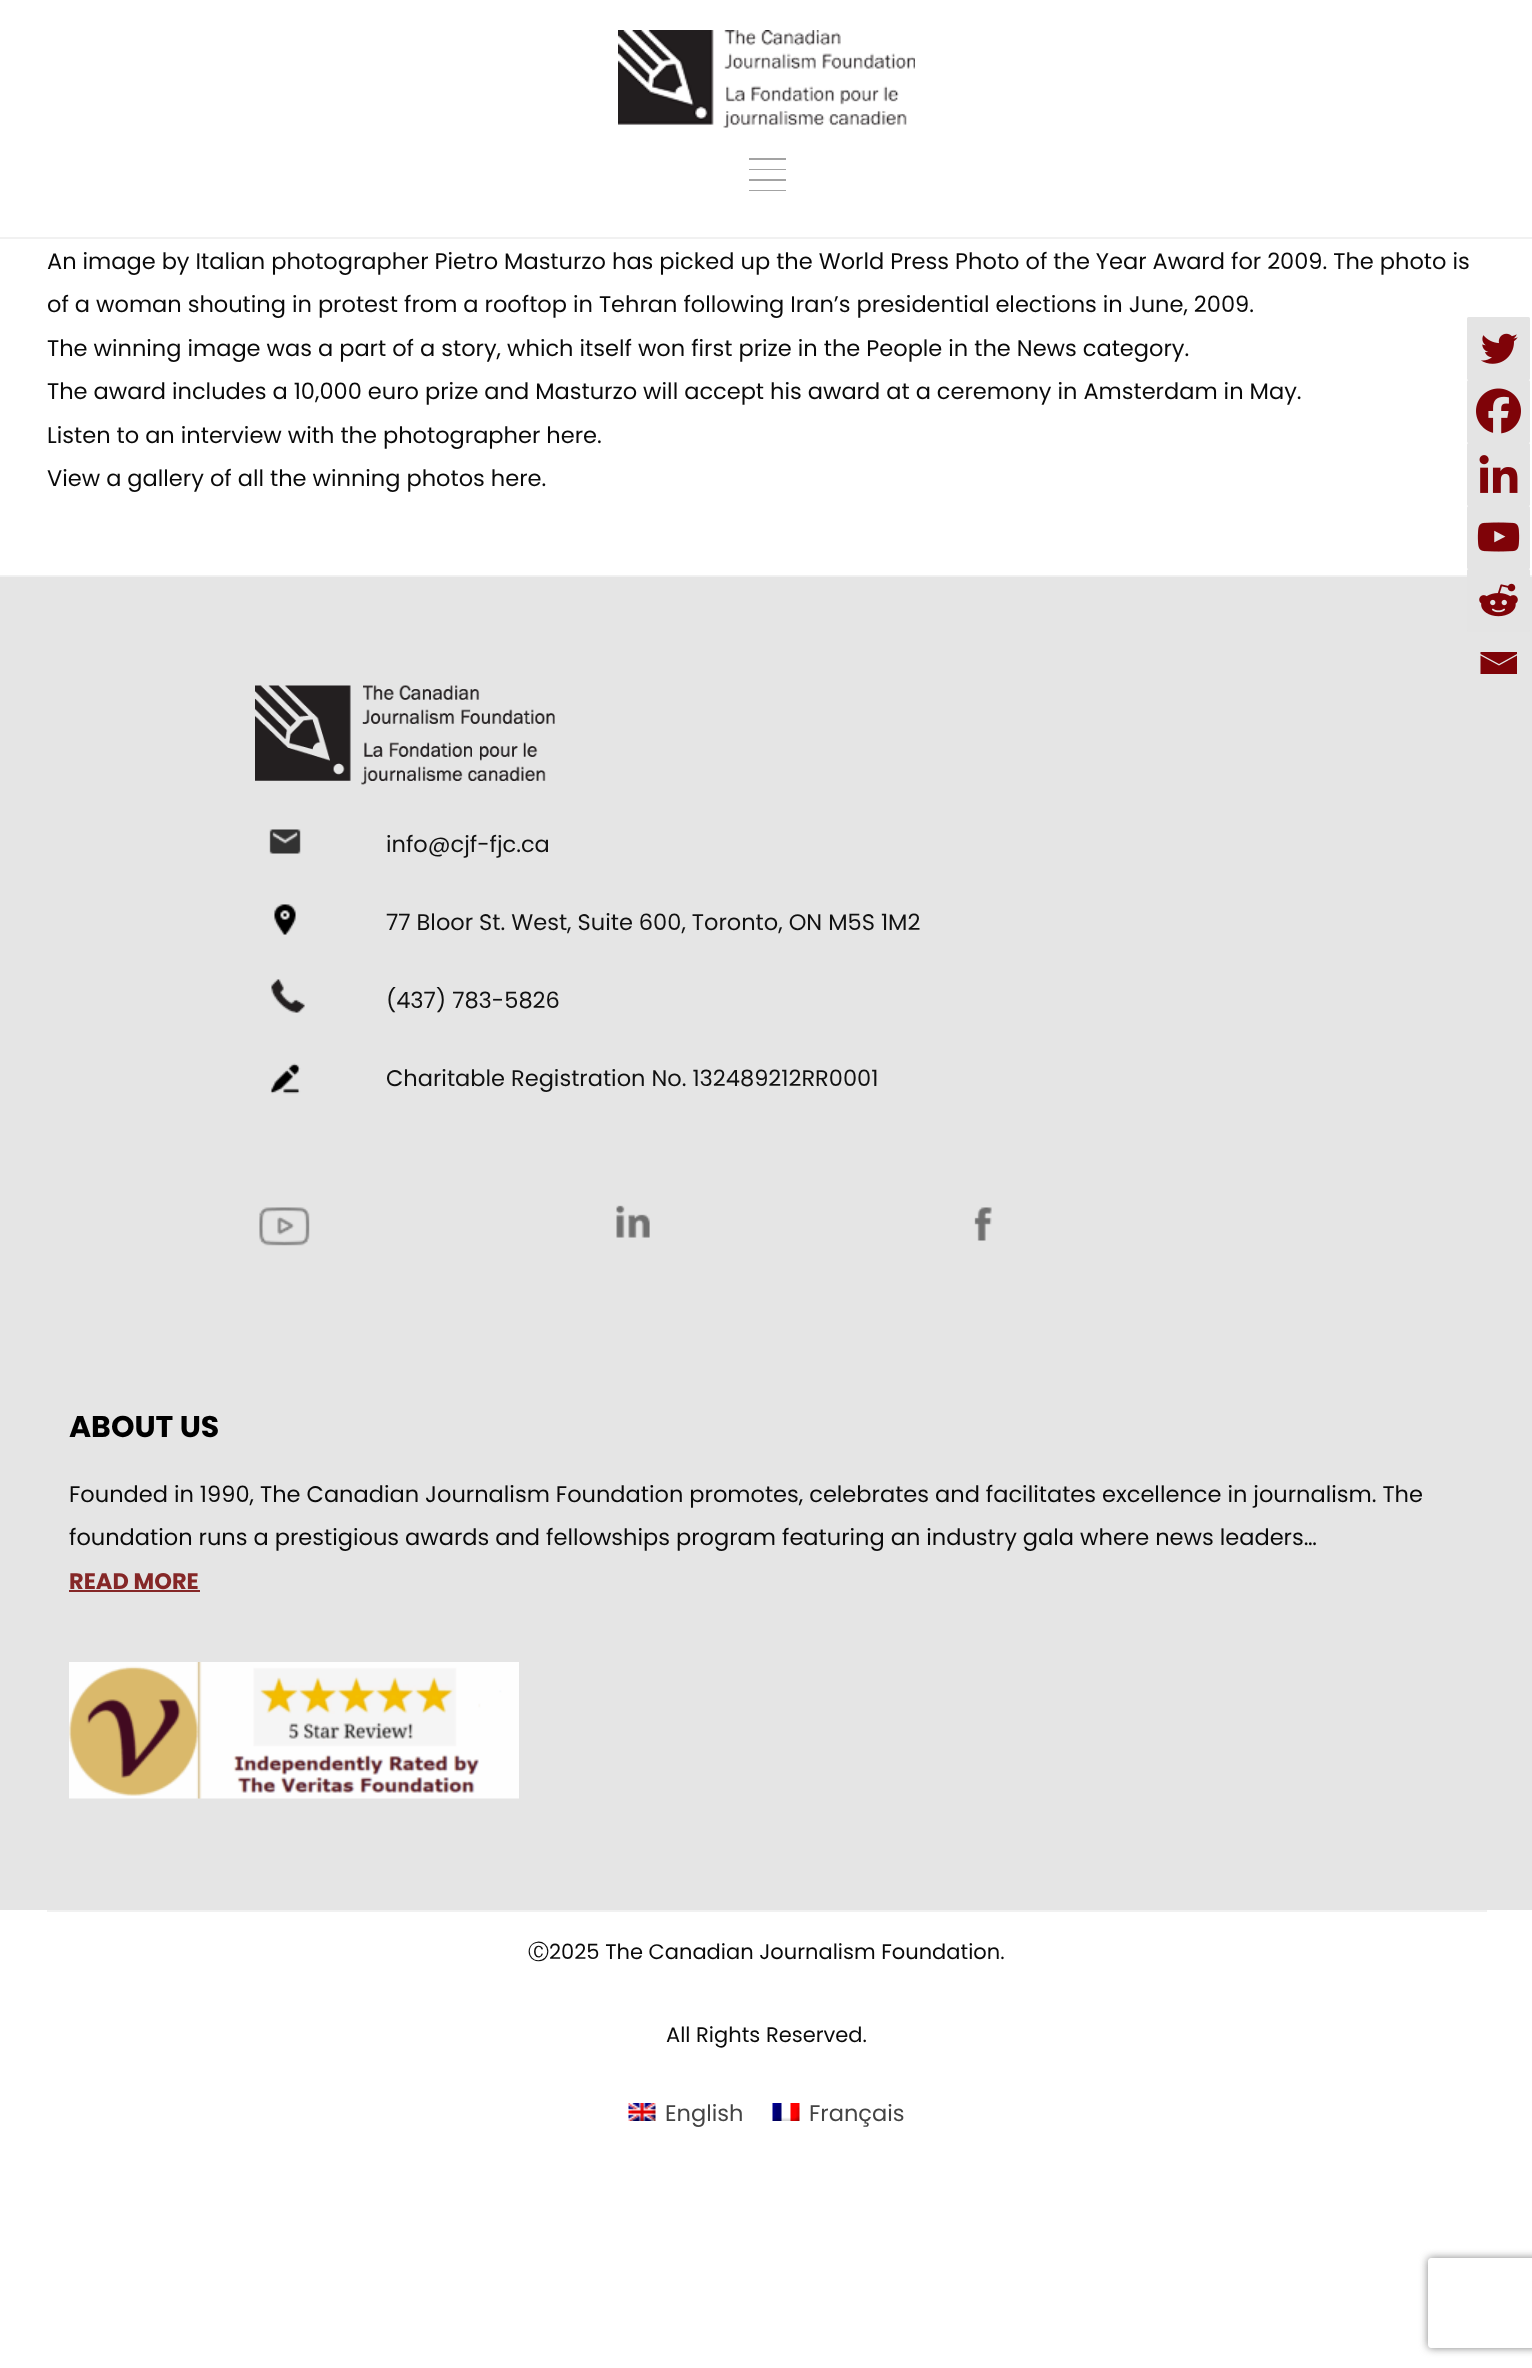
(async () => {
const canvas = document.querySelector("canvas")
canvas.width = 1532
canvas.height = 2368
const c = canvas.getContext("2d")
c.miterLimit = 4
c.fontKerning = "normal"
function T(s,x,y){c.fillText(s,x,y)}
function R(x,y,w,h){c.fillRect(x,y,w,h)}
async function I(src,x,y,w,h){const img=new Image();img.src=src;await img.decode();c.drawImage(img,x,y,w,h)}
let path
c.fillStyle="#fff"
R(0,0,1532,2368)
c.fillStyle="#f1f1f1"
R(0,237,1532,2)
await I("1.png",618,30,297,98)
c.fillStyle="#a3a3a3"
R(749,158,37,2)
R(749,169,37,1)
R(749,179,37,2)
R(749,190,37,1)
c.font="22.5px Poppins"
c.fillStyle="#0a0a0a"
T("An image by Italian photographer Pietro Masturzo has picked up the World Press Photo of the Year Award for 2009. The photo is",47,269)
T("of a woman shouting in protest from a rooftop in Tehran following Iran’s presidential elections in June, 2009.",47,312)
T("The winning image was a part of a story, which itself won first prize in the People in the News category.",47,356)
c.fillStyle="#e4e4e4"
c.beginPath()
c.roundRect(1468,318,61,61,.5)
c.fill()
c.strokeStyle="#e4e4e4"
c.lineWidth=2
c.stroke()
await I("2.png",1481,333,37,31)
c.beginPath()
c.roundRect(1468,381,61,61,.5)
c.fill()
c.stroke()
await I("3.png",1476,388,45,46)
c.beginPath()
c.roundRect(1468,444,61,61,.5)
c.fill()
c.stroke()
await I("4.png",1479,455,39,38)
c.beginPath()
c.roundRect(1468,507,61,61,.5)
c.fill()
c.stroke()
await I("5.png",1477,522,43,30)
c.fillStyle="#e5e5e5"
R(0,577,1532,1333)
c.fillStyle="#f1f1f1"
R(0,575,1532,2)
c.fillStyle="#e4e4e4"
c.beginPath()
c.roundRect(1468,570,61,61,.5)
c.fill()
c.stroke()
await I("6.png",1479,583,39,34)
c.fillStyle="#7f0308"
path = new Path2D("M1479 652h38v2l-18 10l-18.5-10v-2m0 3.5l18.5 10l18-10v18.5h-36.5v-18.5")
c.fill(path)
c.fillStyle="#0a0a0a"
T("The award includes a 10,000 euro prize and Masturzo will accept his award at a ceremony in Amsterdam in May.",47,399)
T("Listen to an interview with the photographer here.",47,443)
T("View a gallery of all the winning photos here.",47,486)
await I("7.png",255,685,300,100)
await I("8.png",269,829,32,25)
c.fillStyle="#111"
T("info@cjf-fjc.ca",386,852)
await I("9.png",274,904,22,31)
T("77 Bloor St. West, Suite 600, Toronto, ON M5S 1M2",386,930)
await I("10.png",271,979,34,34)
T("(437) 783-5826",386,1008)
await I("11.png",270,1063,31,31)
T("Charitable Registration No. 132489212RR0001",386,1086)
await I("12.png",259,1207,51,39)
await I("13.png",616,1205,34,33)
await I("14.png",974,1207,18,34)
c.font="bold 30px Poppins"
c.fillStyle="#000"
T("ABOUT US",69,1437)
c.font="22.5px Poppins"
c.fillStyle="#0a0a0a"
T("Founded in 1990, The Canadian Journalism Foundation promotes, celebrates and facilitates excellence in journalism. The",69,1502)
T("foundation runs a prestigious awards and fellowships program featuring an industry gala where news leaders…",69,1545)
c.font="bold 22.5px Poppins"
c.fillStyle="#852727"
T("READ MORE",69,1589)
R(69,1590,131,2)
await I("15.png",69,1662,450,137)
c.fillStyle="#f1f1f1"
R(47,1910,1440,2)
c.font="500 21px WenQuanYi Zen Hei"
c.fillStyle="#0a0a0a"
T("Ⓒ",528,1959)
c.font="21px Poppins"
T("2025 The Canadian Journalism Foundation.",549,1959)
T("All Rights Reserved.",666,2042)
await I("16.png",628,2103,28,18)
c.font="22.5px Poppins"
c.fillStyle="#444"
T("English",665,2121)
await I("17.png",772,2103,28,18)
T("Français",809,2121)
c.save()
path = new Path2D("M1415 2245h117v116h-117zm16 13h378c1.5 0 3 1.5 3 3v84c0 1.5-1.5 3-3 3h-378c-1.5 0-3-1.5-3-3v-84c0-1.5 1.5-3 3-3z")
c.clip(path,"evenodd")
c.fillStyle="#808080"
c.filter="blur(4px)"
c.beginPath()
c.roundRect(1428,2258,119,90,3)
c.fill()
c.filter="none"
c.restore()
})()
